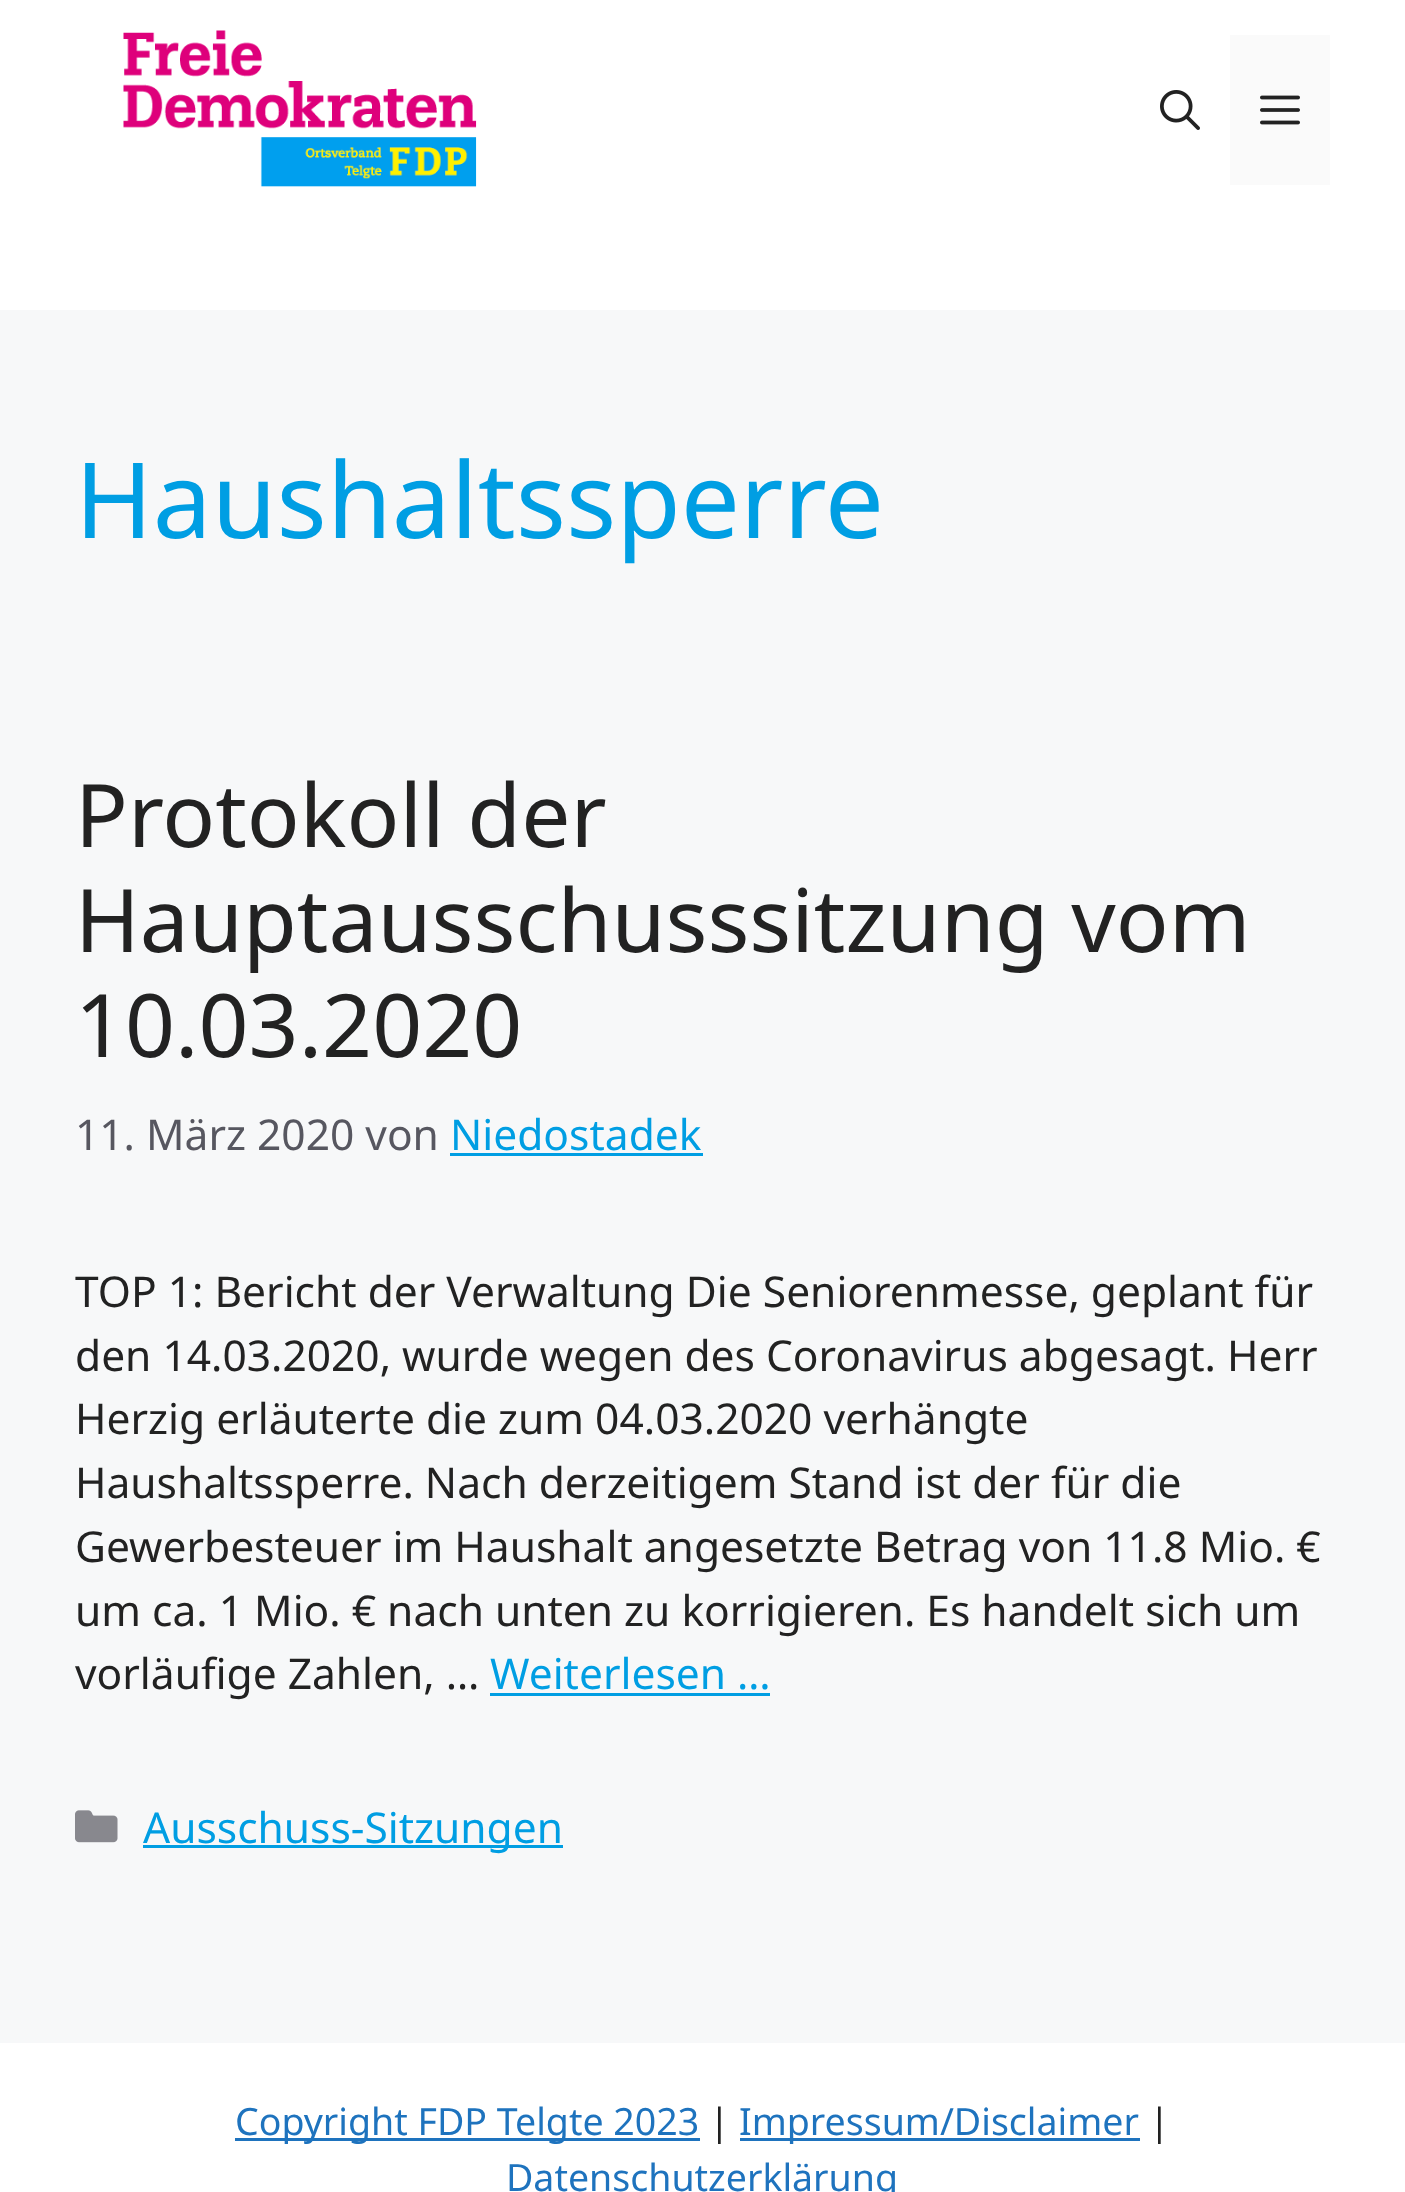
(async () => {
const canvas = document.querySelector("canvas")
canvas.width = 1405
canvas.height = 2192
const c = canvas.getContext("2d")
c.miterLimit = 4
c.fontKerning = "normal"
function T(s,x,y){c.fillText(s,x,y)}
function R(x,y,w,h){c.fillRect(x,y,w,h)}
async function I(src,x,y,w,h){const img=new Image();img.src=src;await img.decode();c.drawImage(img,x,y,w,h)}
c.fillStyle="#f7f8f9"
R(0,0,1405,2192)
c.fillStyle="#fff"
R(0,0,1405,310)
await I("1.png",123,30,354,157)
await I("2.png",1160,90,40,40)
c.fillStyle="#fafafa"
R(1230,35,100,150)
await I("3.png",1260,95,40,30)
c.font="105px Noto Sans"
c.fillStyle="#009ee3"
T("Haushaltssperre",75,538)
c.font="87.5px Noto Sans"
c.fillStyle="#222"
T("Protokoll der",75,847)
T("Hauptausschusssitzung vom",75,952)
T("10.03.2020",75,1057)
c.font="42.5px Noto Sans"
c.fillStyle="#575760"
T("11. März 2020 von",75,1150)
c.fillStyle="#009ee3"
T("Niedostadek",450,1150)
R(450,1153,253,3)
c.fillStyle="#222"
T("TOP 1: Bericht der Verwaltung Die Seniorenmesse, geplant für",75,1307)
T("den 14.03.2020, wurde wegen des Coronavirus abgesagt. Herr",75,1371)
T("Herzig erläuterte die zum 04.03.2020 verhängte",75,1434)
T("Haushaltssperre. Nach derzeitigem Stand ist der für die",75,1498)
T("Gewerbesteuer im Haushalt angesetzte Betrag von 11.8 Mio. €",75,1562)
T("um ca. 1 Mio. € nach unten zu korrigieren. Es handelt sich um",75,1626)
T("vorläufige Zahlen, …",75,1689)
c.fillStyle="#009ee3"
T("Weiterlesen …",490,1689)
R(490,1693,280,3)
await I("4.png",75,1810,43,33)
R(143,1845,420,3)
T("Ausschuss-Sitzungen",143,1843)
c.fillStyle="#fff"
R(0,2043,1405,149)
c.fillStyle="#1e73be"
R(235,2138,465,3)
c.font="37.5px Noto Sans"
T("Copyright FDP Telgte 2023",235,2135)
c.fillStyle="#222"
T("|",709,2135)
c.fillStyle="#1e73be"
R(740,2138,400,3)
T("Impressum/Disclaimer",739,2135)
c.fillStyle="#222"
T("|",1149,2135)
c.fillStyle="#1e73be"
T("Datenschutzerklärung",506,2191)
})()
